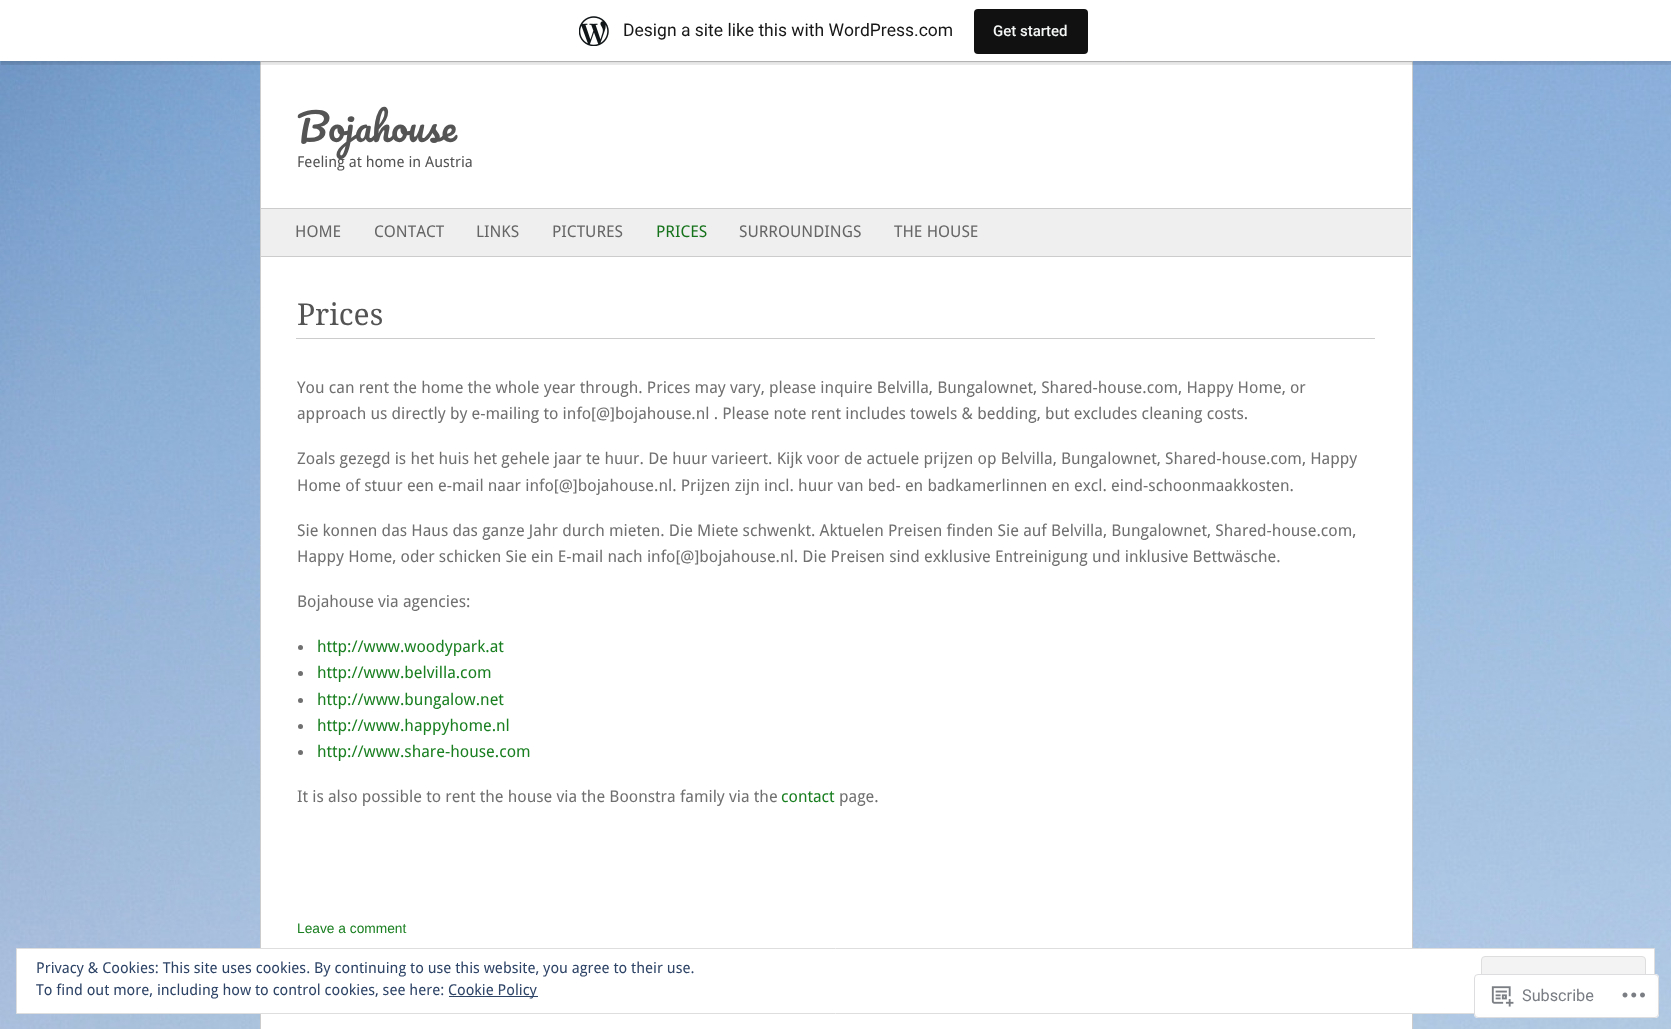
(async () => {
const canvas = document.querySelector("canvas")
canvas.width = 1671
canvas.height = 1029
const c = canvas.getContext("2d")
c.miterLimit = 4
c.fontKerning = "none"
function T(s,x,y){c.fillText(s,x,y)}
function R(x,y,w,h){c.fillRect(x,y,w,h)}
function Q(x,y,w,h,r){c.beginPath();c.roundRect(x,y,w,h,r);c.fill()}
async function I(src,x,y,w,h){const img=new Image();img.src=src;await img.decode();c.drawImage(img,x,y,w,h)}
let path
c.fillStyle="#fff"
R(0,0,1671,1029)
await I("1.png",0,61,1671,968)
c.beginPath()
c.rect(260.5,61.5,1152,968)
c.fill()
c.strokeStyle="#ccc"
c.stroke()
c.fillStyle="#0000000d"
c.filter="blur(1px)"
c.beginPath()
c.rect(0,1,1671,62)
c.fill()
c.filter="none"
c.fillStyle="#00000014"
path = new Path2D("M1 61v4h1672v-61h-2v57z")
c.fill(path)
c.fillStyle="#fff"
R(0,0,1671,61)
await I("2.png",579,16,30,30)
c.font="17.5px Roboto"
c.fillStyle="#171717"
T("Design a site like this with WordPress.com",623,36)
c.fillStyle="#111"
Q(974,9,114,45,4)
c.font="500 15px Roboto"
c.fillStyle="#f6f7f7"
T("Get started",993,36)
c.font="37.5px Pacifico"
c.fillStyle="#545454"
T("Bojahouse",297,142)
c.font="15px Droid Sans"
T("Feeling at home in Austria",297,167)
c.fillStyle="#efefef"
R(261,209,1150,47)
c.fillStyle="#ccc"
R(261,208,1150,1)
R(261,256,1150,1)
c.font="16.25px Droid Sans"
c.fillStyle="#666"
T("HOME",295,237)
T("CONTACT",374,237)
T("LINKS",476,237)
T("PICTURES",552,237)
c.fillStyle="#16731c"
T("PRICES",656,237)
c.fillStyle="#666"
T("SURROUNDINGS",739,237)
T("THE HOUSE",894,237)
c.fillStyle="#ccc"
R(296,338,1079,1)
c.font="30px Droid Serif"
c.fillStyle="#545454"
T("Prices",297,325)
c.font="16.25px Droid Sans"
c.fillStyle="#707070"
T("You can rent the home the whole year through. Prices may vary, please inquire Belvilla, Bungalownet, Shared-house.com, Happy Home, or",297,393)
T("approach us directly by e-mailing to info[@]bojahouse.nl . Please note rent includes towels & bedding, but excludes cleaning costs.",297,419)
T("Zoals gezegd is het huis het gehele jaar te huur. De huur varieert. Kijk voor de actuele prijzen op Belvilla, Bungalownet, Shared-house.com, Happy",297,464)
T("Home of stuur een e-mail naar info[@]bojahouse.nl. Prijzen zijn incl. huur van bed- en badkamerlinnen en excl. eind-schoonmaakkosten.",297,491)
T("Sie konnen das Haus das ganze Jahr durch mieten. Die Miete schwenkt. Aktuelen Preisen finden Sie auf Belvilla, Bungalownet, Shared-house.com,",297,536)
T("Happy Home, oder schicken Sie ein E-mail nach info[@]bojahouse.nl. Die Preisen sind exklusive Entreinigung und inklusive Bettwäsche.",297,562)
T("Bojahouse via agencies:",297,607)
c.beginPath()
c.arc(300.5,647.5,2.5,0,7)
c.fill()
c.fillStyle="#197f20"
T("http://www.woodypark.at",317,652)
c.fillStyle="#707070"
c.beginPath()
c.arc(300.5,673.5,2.5,0,7)
c.fill()
c.fillStyle="#197f20"
T("http://www.belvilla.com",317,678)
c.fillStyle="#707070"
c.beginPath()
c.arc(300.5,700.5,2.5,0,7)
c.fill()
c.fillStyle="#197f20"
T("http://www.bungalow.net",317,705)
c.fillStyle="#707070"
c.beginPath()
c.arc(300.5,726.5,2.5,0,7)
c.fill()
c.fillStyle="#197f20"
T("http://www.happyhome.nl",317,731)
c.fillStyle="#707070"
c.beginPath()
c.arc(300.5,752.5,2.5,0,7)
c.fill()
c.fillStyle="#197f20"
T("http://www.share-house.com",317,757)
c.fillStyle="#707070"
T("It is also possible to rent the house via the Boonstra family via the",297,802)
c.fillStyle="#197f20"
T("contact",781,802)
c.fillStyle="#707070"
T("page.",839,802)
c.font="13.75px Liberation Sans"
c.fillStyle="#197f20"
T("Leave a comment",297,933)
c.fillStyle="#fff"
c.beginPath()
c.rect(16.5,948.5,1638,65)
c.fill()
c.strokeStyle="#dedede"
c.stroke()
c.font="15px Droid Sans"
c.fillStyle="#2e4467"
T("Privacy & Cookies: This site uses cookies. By continuing to use this website, you agree to their use.",36,973)
c.fillStyle="#f3f3f3"
c.beginPath()
c.roundRect(1481.5,956.5,164,48,3.5)
c.fill()
c.stroke()
c.fillStyle="#2e4467"
T("To find out more, including how to control cookies, see here:",36,995)
R(449,996,89,1)
T("Cookie Policy",448,995)
c.fillStyle="#fffffffa"
Q(1474,974,185,44,4)
c.beginPath()
c.roundRect(1474.5,974.5,184,43,3.5)
c.strokeStyle="#dcdcdefa"
c.stroke()
await I("3.png",1491,986,23,21)
c.font="16.25px Roboto"
c.fillStyle="#7a7e84"
T("Subscribe",1522,1001)
await I("4.png",1622,992,23,6)
})()
